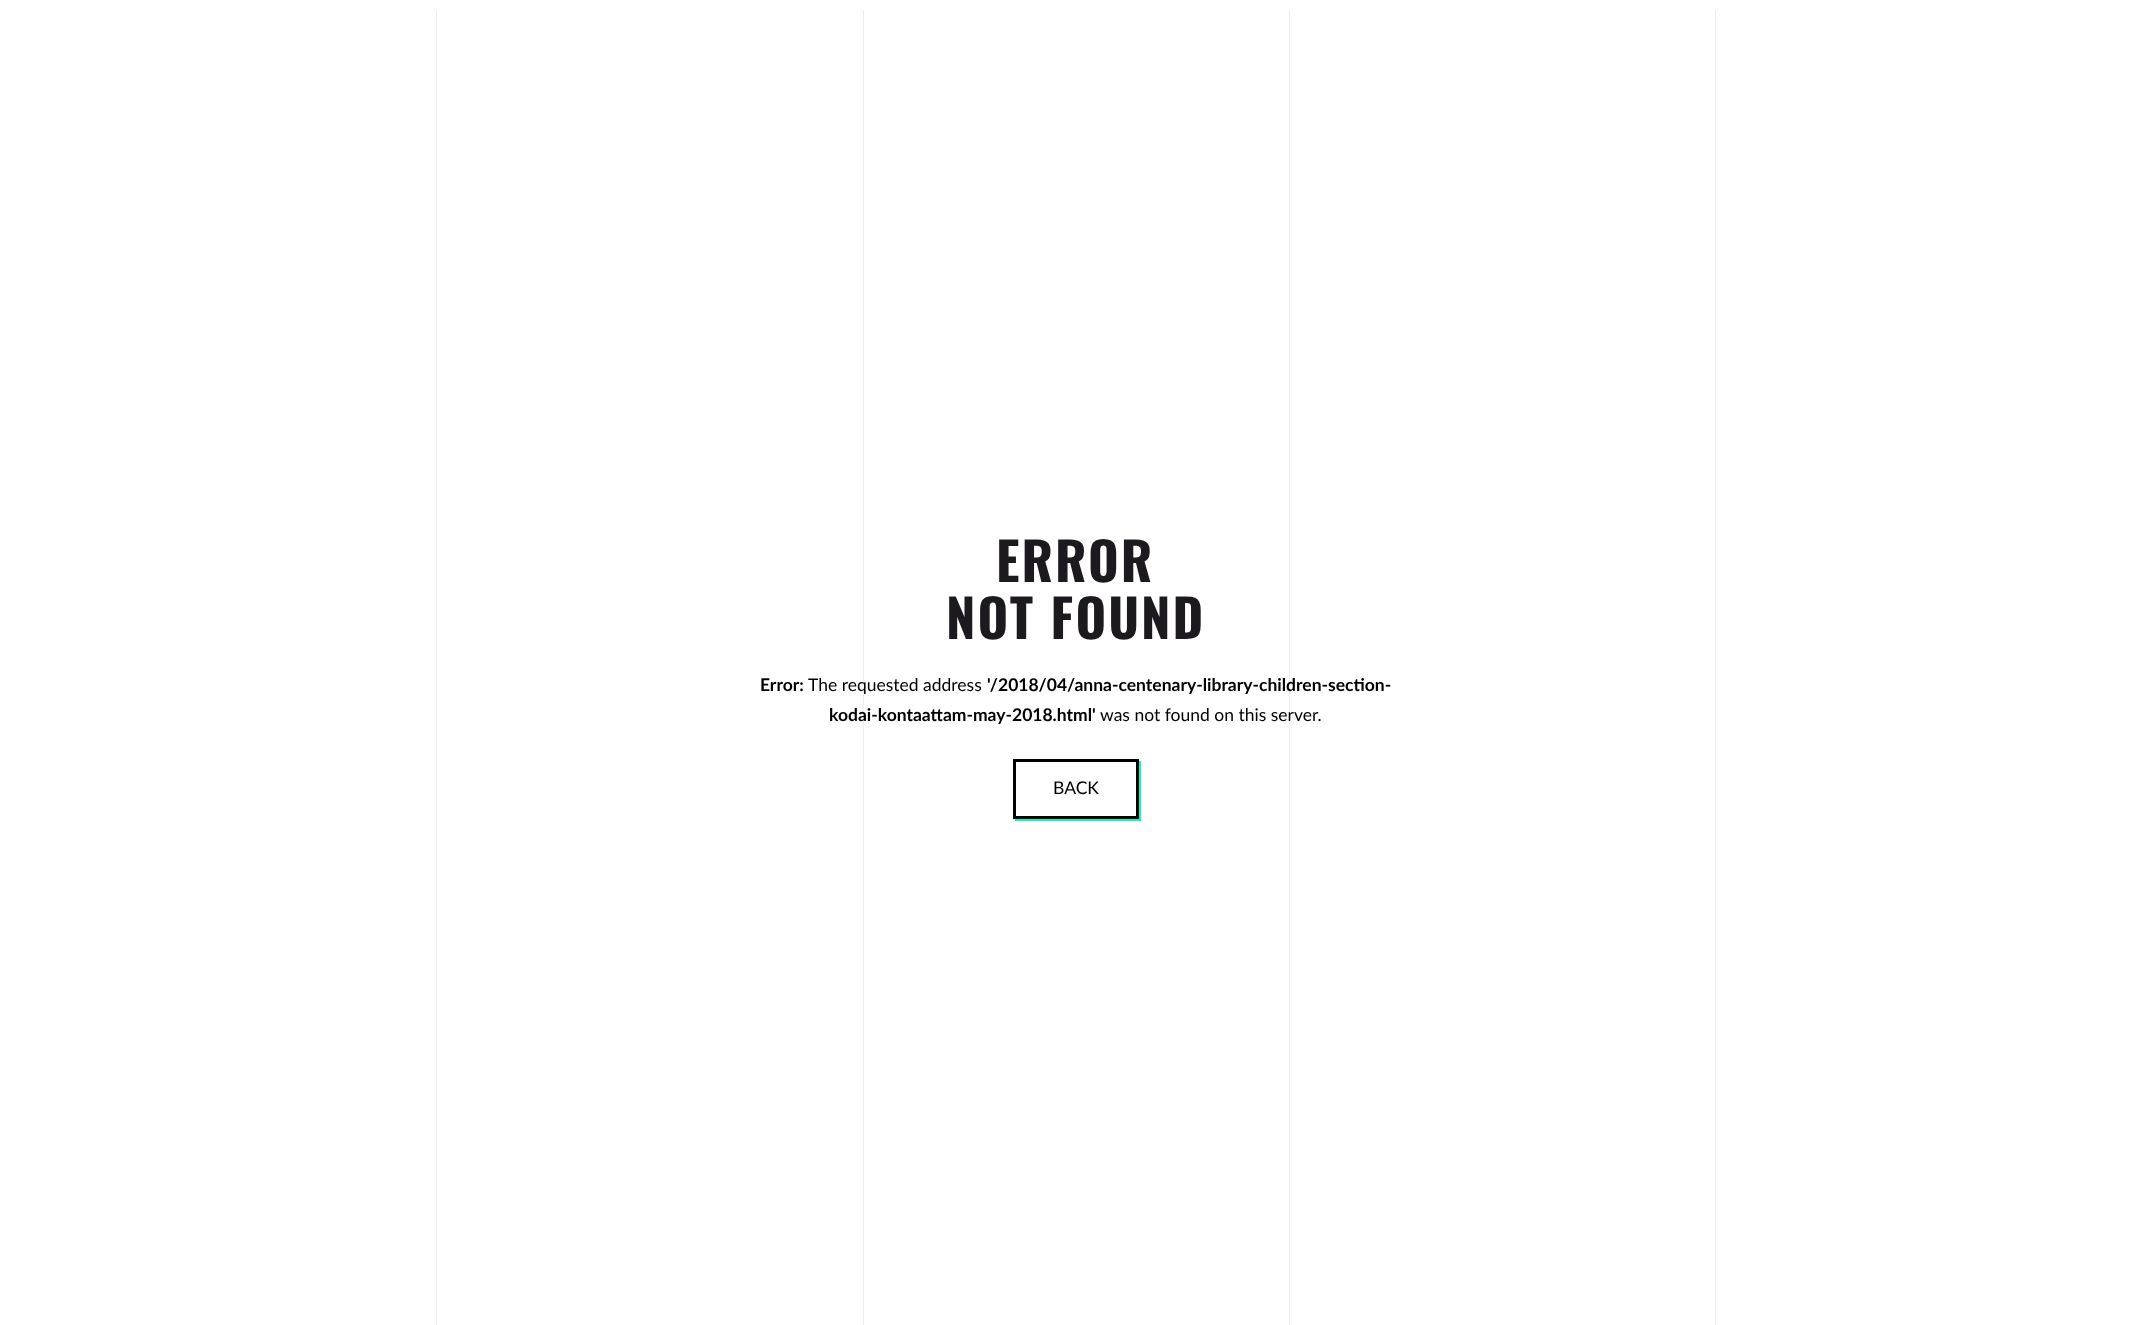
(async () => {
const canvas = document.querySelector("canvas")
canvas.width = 2151
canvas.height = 1325
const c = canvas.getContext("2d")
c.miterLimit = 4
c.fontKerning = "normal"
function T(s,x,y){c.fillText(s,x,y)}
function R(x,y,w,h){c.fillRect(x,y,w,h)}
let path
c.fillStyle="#fff"
R(0,0,2151,1325)
c.fillStyle="#eee"
R(436,10,1,1315)
R(863,10,1,1315)
R(1289,10,1,1315)
R(1715,10,1,1315)
c.letterSpacing="2px"
c.font="bold 52.5px Oswald"
c.fillStyle="#1c1a1f"
T("ERROR",996,582)
T("NOT FOUND",946,639)
c.letterSpacing="0px"
c.font="bold 17.5px Lato"
c.fillStyle="#000"
T("Error:",760,691)
c.font="17.5px Lato"
T("The requested address",808,691)
c.font="bold 17.5px Lato"
T("'/2018/04/anna-centenary-library-children-section-",987,691)
T("kodai-kontaattam-may-2018.html'",829,721)
c.font="17.5px Lato"
T("was not found on this server.",1100,721)
c.fillStyle="#00ffc0"
path = new Path2D("M1015 816v5h126v-60h-5v55z")
c.fill(path)
c.strokeStyle="#000"
c.lineWidth=3
c.strokeRect(1014.5,760.5,123,57)
c.fillStyle="#000"
T("BACK",1053,794)
})()
